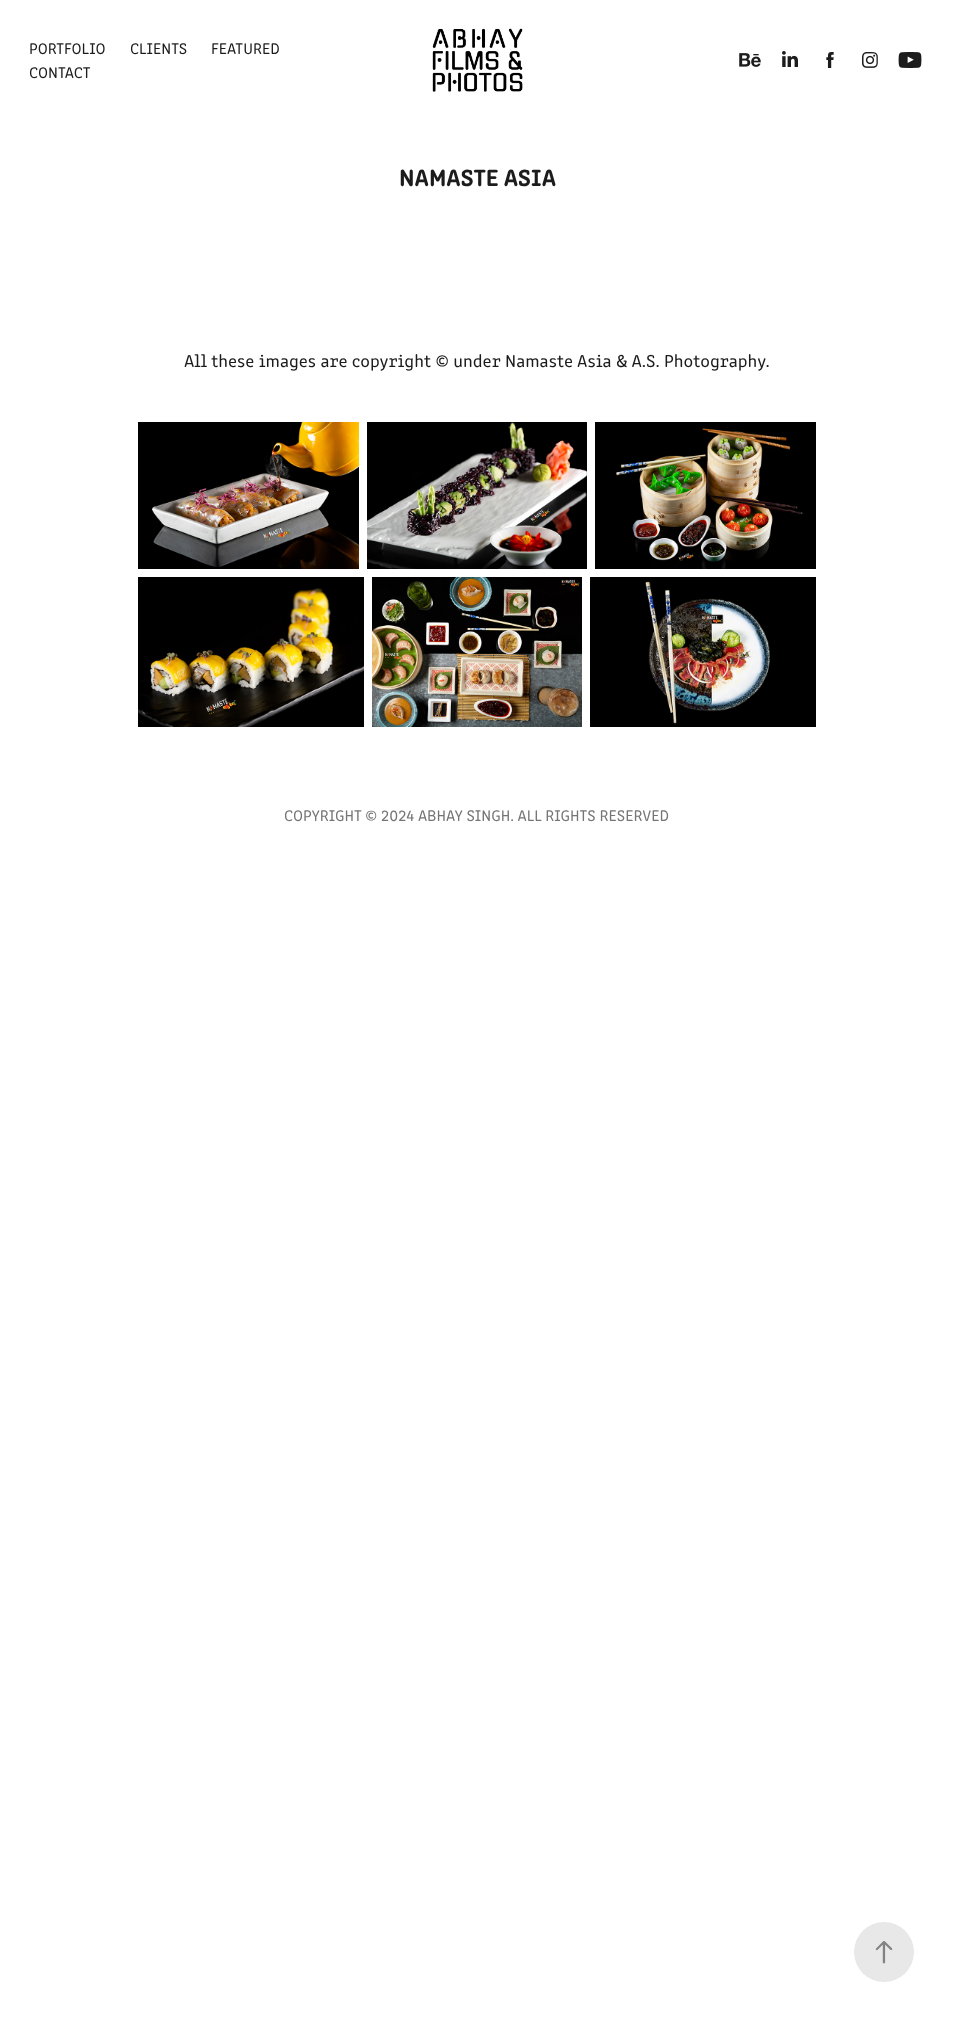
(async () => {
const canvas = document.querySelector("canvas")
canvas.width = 954
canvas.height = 2022
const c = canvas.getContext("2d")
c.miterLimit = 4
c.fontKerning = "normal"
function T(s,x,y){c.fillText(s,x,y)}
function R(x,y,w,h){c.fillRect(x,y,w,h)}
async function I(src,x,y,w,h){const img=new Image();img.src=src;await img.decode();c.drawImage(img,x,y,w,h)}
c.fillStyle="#fff"
R(0,0,954,2022)
c.font="16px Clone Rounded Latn"
c.fillStyle="#1c1c1c"
T("PORTFOLIO",29,54)
T("CLIENTS",130,54)
T("FEATURED",211,54)
T("CONTACT",29,78)
await I("1.png",432,28,91,64)
await I("2.png",739,53,22,14)
await I("3.png",782,51,16,16)
await I("4.png",826,52,8,16)
await I("5.png",862,52,16,16)
await I("6.png",898,52,24,16)
c.font="bold 24px Clone Rounded Latn"
T("NAMASTE ASIA",399,186)
c.font="18px Clone Rounded Latn"
T("All these images are copyright © under Namaste Asia & A.S. Photography.",184,367)
await I("7.png",138,422,221,147)
await I("8.png",367,422,220,147)
await I("9.png",595,422,221,147)
await I("10.png",138,577,226,150)
await I("11.png",372,577,210,150)
await I("12.png",590,577,226,150)
c.fillStyle="#e8e8e8"
c.beginPath()
c.arc(884,1952,30,0,7)
c.fill()
await I("13.png",875,1941,18,23)
c.font="16px Clone Rounded Latn"
c.fillStyle="#757575"
T("COPYRIGHT © 2024 ABHAY SINGH. ALL RIGHTS RESERVED",284,821)
})()
